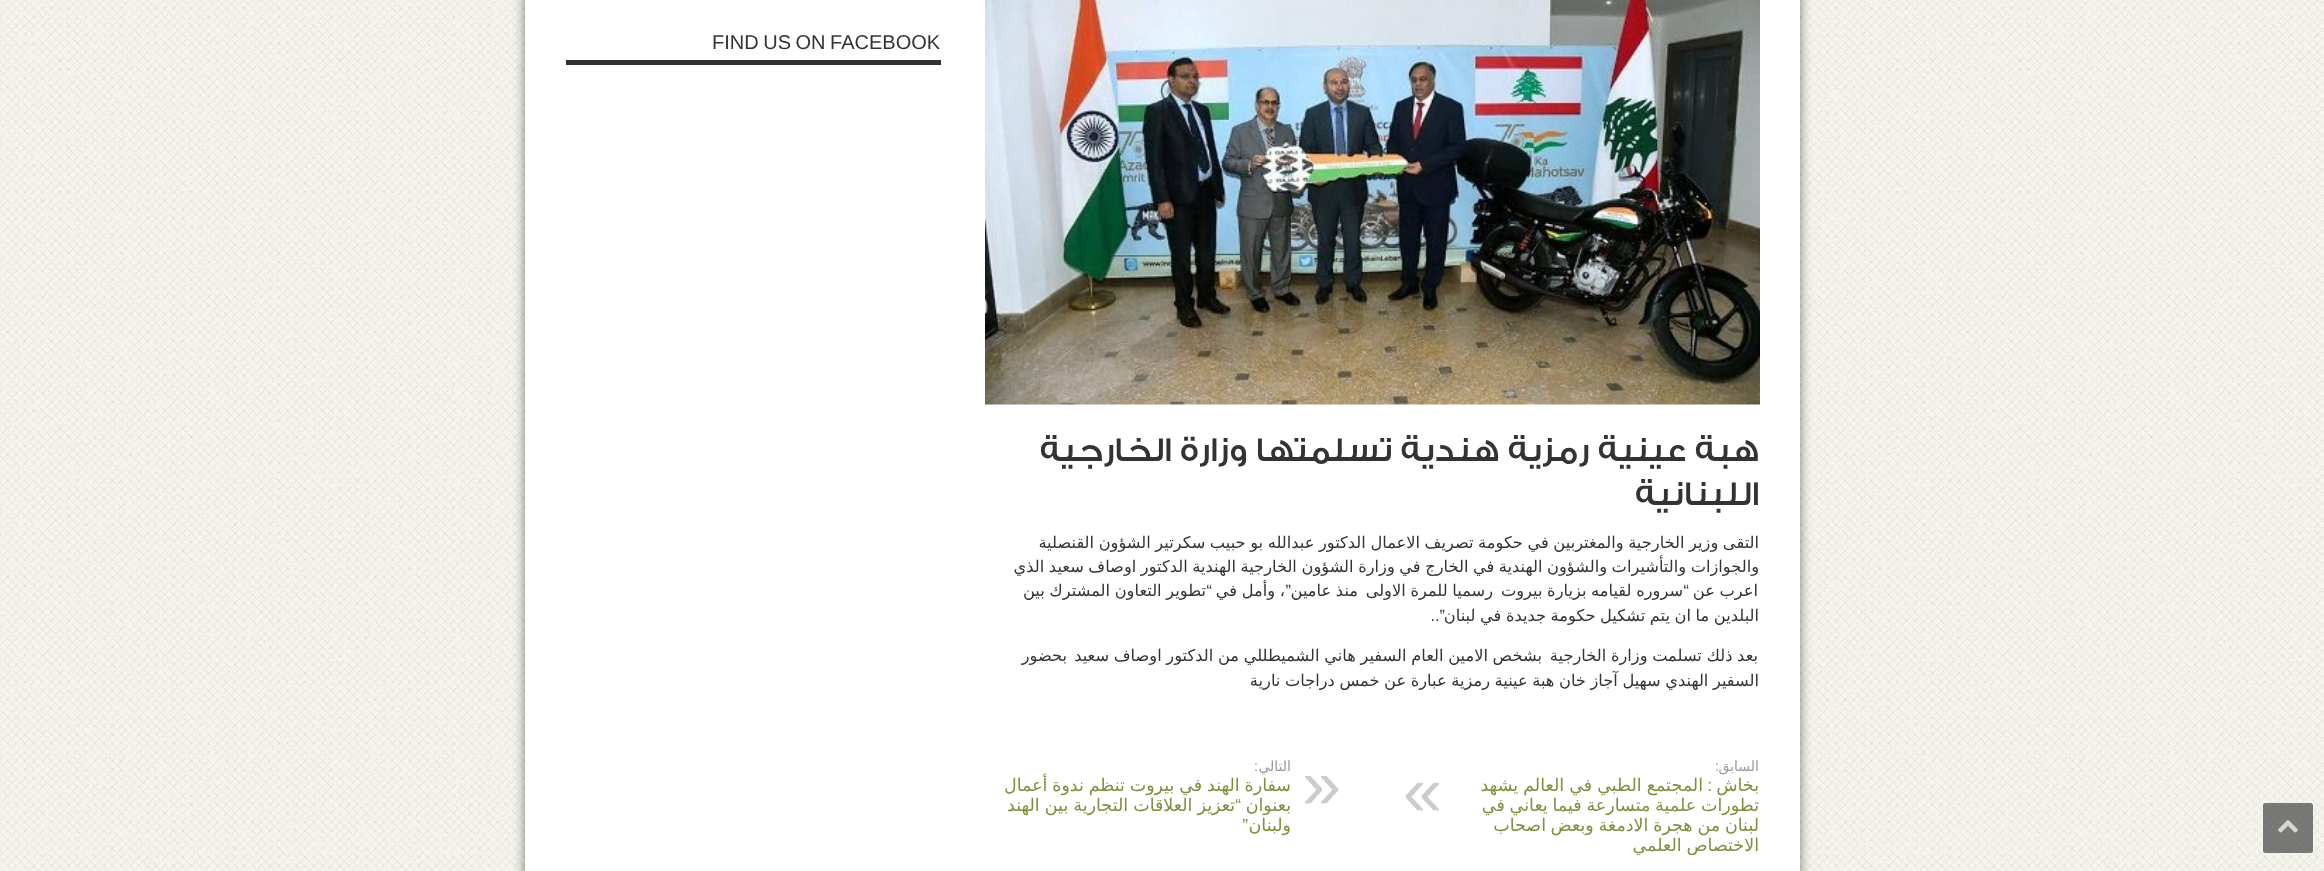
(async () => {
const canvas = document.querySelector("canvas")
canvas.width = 2324
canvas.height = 871
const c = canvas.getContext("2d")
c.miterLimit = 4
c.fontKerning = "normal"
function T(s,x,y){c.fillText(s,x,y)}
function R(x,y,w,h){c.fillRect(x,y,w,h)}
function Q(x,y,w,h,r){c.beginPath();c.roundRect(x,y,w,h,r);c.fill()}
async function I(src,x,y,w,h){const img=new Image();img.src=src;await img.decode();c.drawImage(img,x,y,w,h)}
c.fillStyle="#f4f2e9"
R(0,0,2324,871)
await I("1.png",0,0,2324,871)
c.fillStyle="#444444b3"
Q(2263,803,50,50,2.5)
await I("2.png",2278,820,20,13)
c.fillStyle="#00000080"
c.filter="blur(6px)"
c.beginPath()
c.rect(525,-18,1275,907)
c.fill()
c.filter="none"
c.fillStyle="#fff"
R(525,0,1275,871)
c.fillStyle="#333"
R(566,60,375,5)
c.wordSpacing="-1px"
c.font="20px Liberation Sans"
T("FIND US ON FACEBOOK",712,49)
await I("3.png",985,0,775,405)
c.wordSpacing="0px"
c.direction="rtl"
c.font="500 35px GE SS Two"
T("هبة عينية رمزية هندية تسلمتها وزارة الخارجية",1759,461)
T("اللبنانية",1759,505)
c.wordSpacing="-0.6px"
c.font="16.25px DejaVu Sans"
T("التقى وزير الخارجية والمغتربين في حكومة تصريف الاعمال الدكتور عبدالله بو حبيب سكرتير الشؤون القنصلية",1759,548)
T("والجوازات والتأشيرات والشؤون الهندية في الخارج في وزارة الشؤون الخارجية الهندية الدكتور اوصاف سعيد الذي",1759,572)
c.wordSpacing="-0.5px"
T("اعرب عن",1758,596)
c.wordSpacing="0px"
c.font="16.25px Liberation Sans"
T("“",1689,596)
c.wordSpacing="-0.5px"
c.font="16.25px DejaVu Sans"
T("سروره لقيامه بزيارة بيروت",1683,596)
T("رسميا للمرة الاولى",1493,596)
T("منذ عامين",1358,596)
c.wordSpacing="0px"
c.font="16.25px Liberation Sans"
T("”",1291,596)
c.wordSpacing="-0.5px"
c.font="16.25px DejaVu Sans"
T("، وأمل في",1285,596)
T("تطوير التعاون المشترك بين",1206,596)
c.wordSpacing="0px"
c.font="16.25px Liberation Sans"
T("“",1212,596)
c.wordSpacing="-0.6px"
c.font="16.25px DejaVu Sans"
T("البلدين ما ان يتم تشكيل حكومة جديدة في لبنان",1759,621)
c.wordSpacing="0px"
c.font="16.25px Liberation Sans"
T("”..",1445,621)
c.wordSpacing="-0.5px"
c.font="16.25px DejaVu Sans"
T("بعد ذلك تسلمت وزارة الخارجية",1758,661)
T("بشخص الامين العام السفير هاني الشميطللي من الدكتور اوصاف سعيد",1542,661)
c.wordSpacing="0px"
T("بحضور",1067,661)
c.wordSpacing="-0.6px"
T("السفير الهندي سهيل آجاز خان هبة عينية رمزية عبارة عن خمس دراجات نارية",1759,686)
c.wordSpacing="0px"
c.font="14px DejaVu Sans"
c.fillStyle="#999"
T("السابق",1759,771)
c.font="14px Liberation Sans"
T(":",1719,771)
c.font="17.5px DejaVu Sans"
c.fillStyle="#7e8f3f"
T("بخاش",1759,791)
c.font="17.5px Liberation Sans"
T(":",1712,791)
c.wordSpacing="-0.5px"
c.font="17.5px DejaVu Sans"
T("المجتمع الطبي في العالم يشهد",1703,791)
c.wordSpacing="0px"
c.direction="ltr"
c.font="70px Liberation Sans"
c.fillStyle="#ccc"
T("«",1403,815)
c.save()
c.beginPath()
c.rect(985,759,775,96)
c.clip()
c.wordSpacing="-0.75px"
c.direction="rtl"
c.font="17.5px DejaVu Sans"
c.fillStyle="#7e8f3f"
T("تطورات علمية متسارعة فيما يعاني في",1759,811)
T("لبنان من هجرة الادمغة وبعض",1759,831)
c.restore()
c.direction="rtl"
c.font="17.5px DejaVu Sans"
c.fillStyle="#7e8f3f"
T("اصحاب",1546,831)
c.save()
c.beginPath()
c.rect(985,759,775,96)
c.clip()
c.wordSpacing="-0.75px"
T("الاختصاص العلمي",1759,851)
c.restore()
c.font="14px DejaVu Sans"
c.fillStyle="#999"
T("التالي",1291,771)
c.font="14px Liberation Sans"
T(":",1258,771)
c.direction="ltr"
c.font="70px Liberation Sans"
c.fillStyle="#ccc"
T("»",1302,808)
c.wordSpacing="-0.75px"
c.direction="rtl"
c.font="17.5px DejaVu Sans"
c.fillStyle="#7e8f3f"
T("سفارة الهند في بيروت تنظم ندوة أعمال",1291,791)
c.wordSpacing="0px"
T("بعنوان",1291,811)
c.wordSpacing="-0.5px"
T("تعزيز العلاقات التجارية بين الهند",1235,811)
c.wordSpacing="0px"
c.font="17.5px Liberation Sans"
T("“",1241,811)
c.font="17.5px DejaVu Sans"
T("ولبنان",1291,831)
c.font="17.5px Liberation Sans"
T("”",1248,831)
})()
